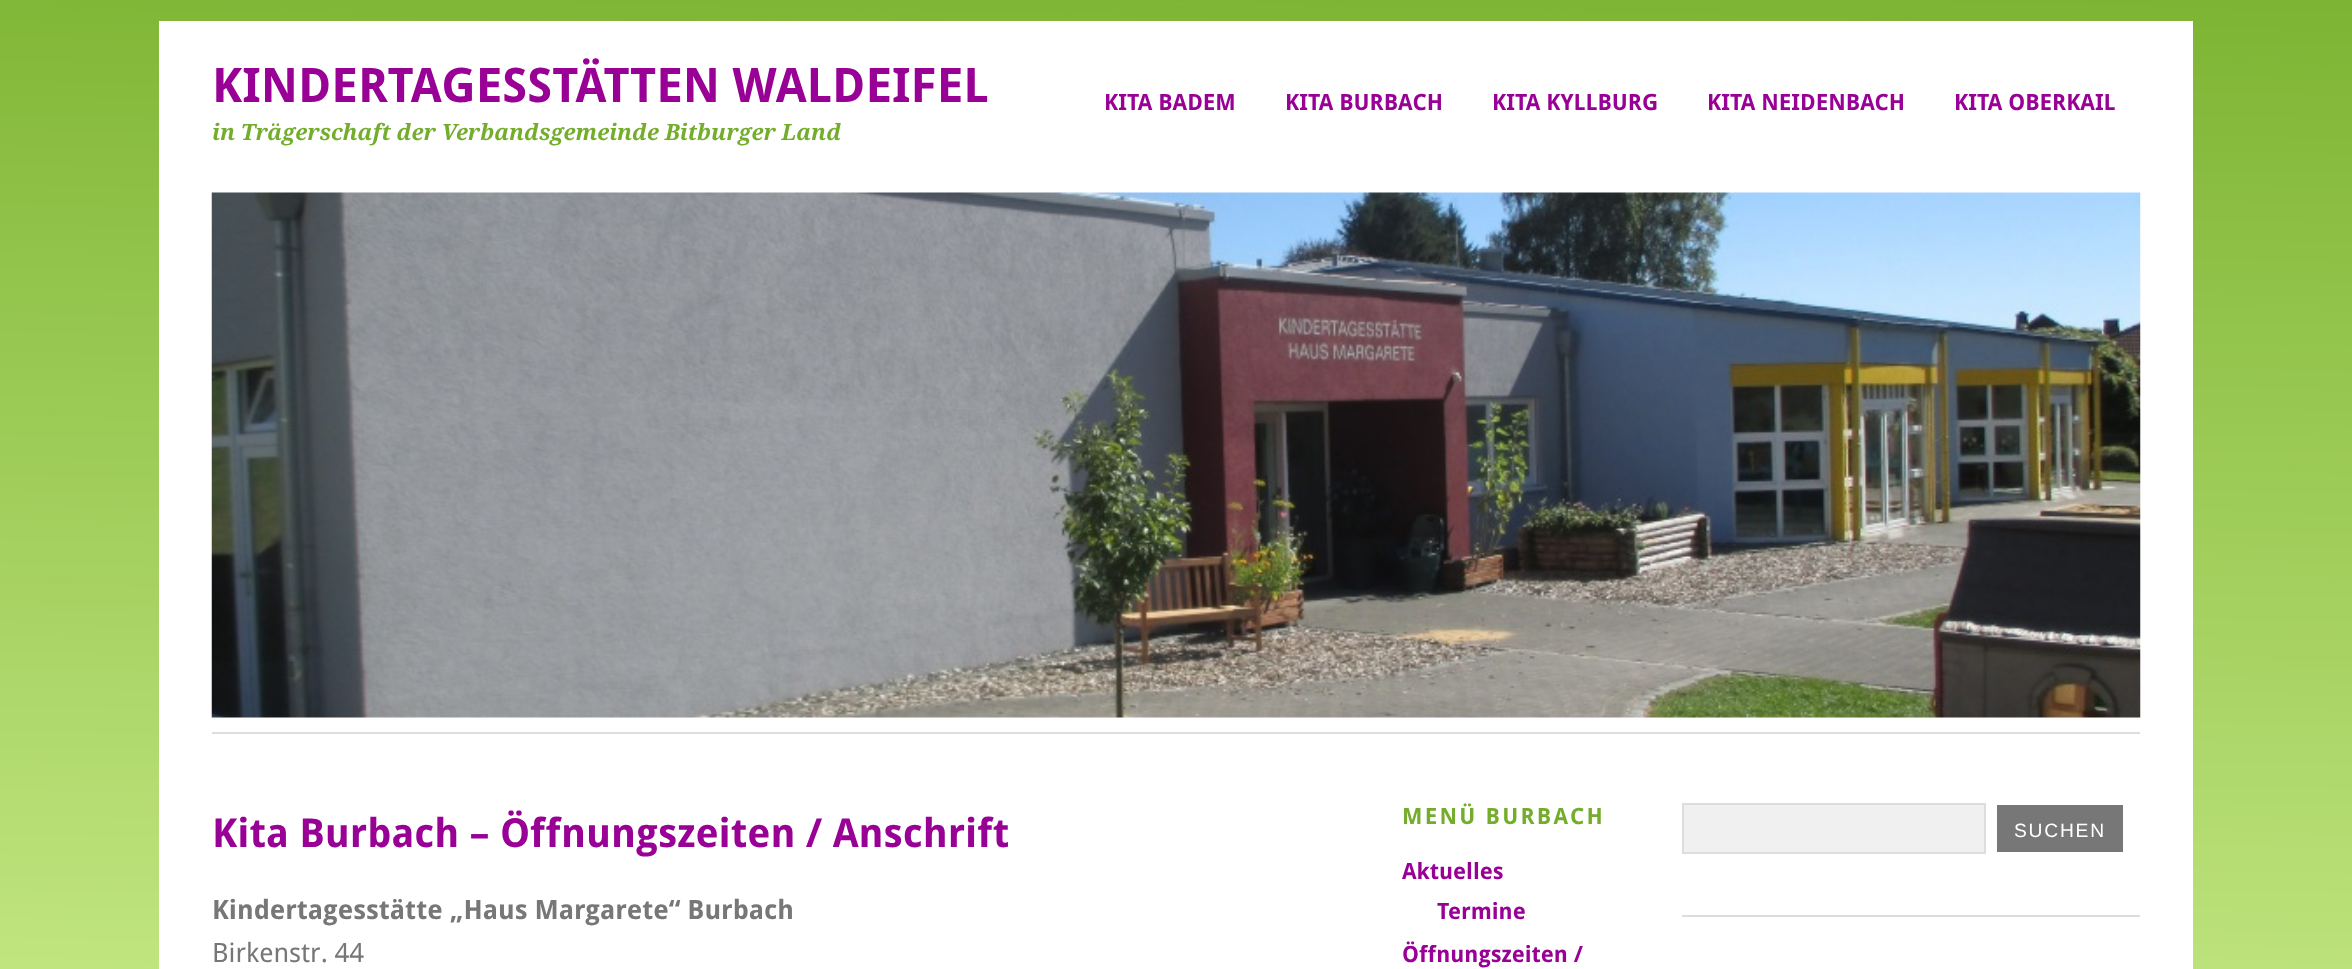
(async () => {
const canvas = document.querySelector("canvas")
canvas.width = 2352
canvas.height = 969
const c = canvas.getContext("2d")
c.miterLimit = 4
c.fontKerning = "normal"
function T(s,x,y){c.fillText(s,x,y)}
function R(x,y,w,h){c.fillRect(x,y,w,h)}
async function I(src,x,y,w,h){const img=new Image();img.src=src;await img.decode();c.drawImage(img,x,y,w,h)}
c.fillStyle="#fff"
R(0,0,2352,969)
await I("1.png",0,0,2352,969)
R(159,21,2034,948)
c.font="bold 47.6px Droid Sans"
c.fillStyle="#990096"
T("KINDERTAGESSTÄTTEN WALDEIFEL",212,102)
c.font="italic bold 22.4px Droid Serif"
c.fillStyle="#74ad2c"
T("in Trägerschaft der Verbandsgemeinde Bitburger Land",212,140)
c.font="bold 22.4px Droid Sans"
c.fillStyle="#990096"
T("KITA BADEM",1104,110)
T("KITA BURBACH",1285,110)
T("KITA KYLLBURG",1492,110)
T("KITA NEIDENBACH",1707,110)
T("KITA OBERKAIL",1954,110)
await I("2.png",211,192,1930,526)
c.fillStyle="#ddd"
R(212,732,1928,2)
c.font="bold 39.9px Droid Sans"
c.fillStyle="#990096"
T("Kita Burbach – Öffnungszeiten / Anschrift",212,847)
c.font="bold 26.6px Droid Sans"
c.fillStyle="#777"
T("Kindertagesstätte „Haus Margarete“ Burbach",212,919)
c.font="26.6px Droid Sans"
T("Birkenstr. 44",212,962)
c.letterSpacing="2.25px"
c.font="bold 22.4px Droid Sans"
c.fillStyle="#74ad2c"
T("MENÜ BURBACH",1402,824)
c.letterSpacing="0px"
c.fillStyle="#990096"
T("Aktuelles",1402,879)
T("Termine",1437,919)
T("Öffnungszeiten /",1402,962)
c.fillStyle="#ddd"
R(1682,915,458,2)
c.fillStyle="#f0f0f0"
c.beginPath()
c.rect(1683,804,302,49)
c.fill()
c.strokeStyle="#ddd"
c.lineWidth=2
c.stroke()
c.fillStyle="#777"
R(1997,805,126,47)
c.letterSpacing="1.75px"
c.font="19.25px Liberation Sans"
c.fillStyle="#fff"
T("SUCHEN",2014,837)
})()
